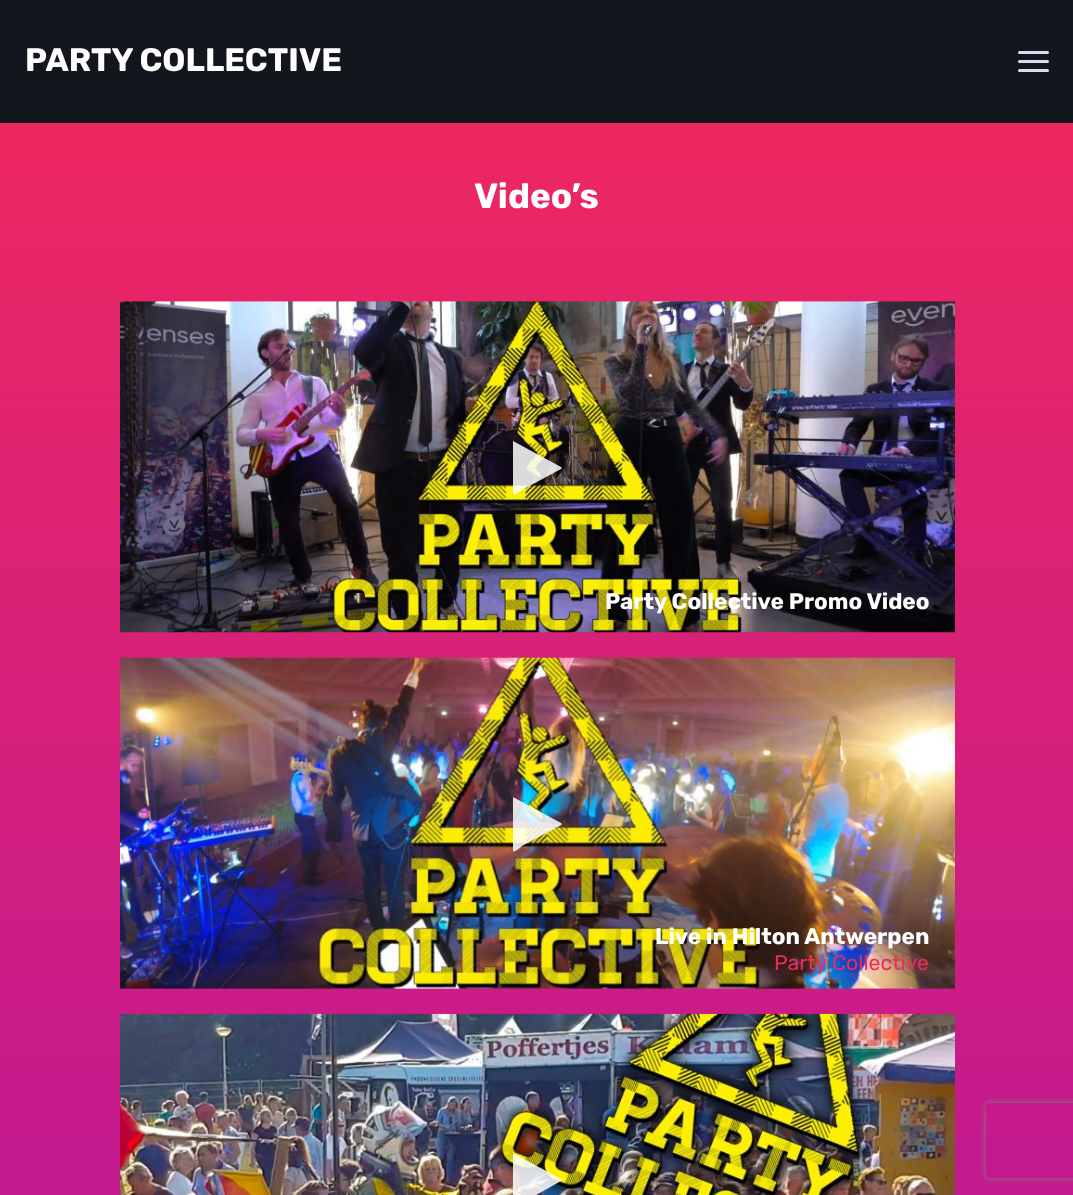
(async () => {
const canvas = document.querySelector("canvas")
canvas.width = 1073
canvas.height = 1195
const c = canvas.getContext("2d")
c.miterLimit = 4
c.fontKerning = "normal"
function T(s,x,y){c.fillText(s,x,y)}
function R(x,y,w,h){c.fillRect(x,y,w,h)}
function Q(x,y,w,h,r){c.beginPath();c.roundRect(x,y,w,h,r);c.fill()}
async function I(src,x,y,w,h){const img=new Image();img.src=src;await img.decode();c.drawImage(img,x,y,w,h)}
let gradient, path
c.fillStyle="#fff"
R(0,0,1073,1195)
gradient = c.createLinearGradient(537,0,537,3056)
gradient.addColorStop(0,"#f2295b")
gradient.addColorStop(1,"#7900e2")
c.fillStyle = gradient
R(0,123,1073,1072)
c.fillStyle="#13171d"
R(0,0,1073,123)
c.font="bold 32.5px Rubik"
c.fillStyle="#fff"
T("PARTY COLLECTIVE",25,71)
c.fillStyle="#d4deef"
Q(1018,60,31,3,1.5)
Q(1018,51,31,3,1.5)
Q(1018,69,31,3,1.5)
c.font="bold 35px Rubik"
c.fillStyle="#fff"
T("Video’s",474,208)
await I("1.png",120,301,835,332)
c.fillStyle="#ffffffd9"
path = new Path2D("M561 469l-39 21c-1 1-8 6-9 4v-53l48 26l1 1z")
c.fill(path)
c.font="bold 22.5px Rubik"
c.fillStyle="#fff"
T("Party Collective Promo Video",605,609)
await I("2.png",120,657,835,332)
c.fillStyle="#ffffffd9"
path = new Path2D("M561 825l-39 21c-1 1-8 7-9 5v-53v-1l48 26l1 1z")
c.fill(path)
c.fillStyle="#fff"
T("Live in Hilton Antwerpen",655,944)
c.font="21.25px Rubik"
c.fillStyle="#f2295b"
T("Party Collective",774,970)
await I("3.png",120,1013,835,182)
c.fillStyle="#ffffffd9"
path = new Path2D("M561 1181l-39 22c-1 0-8 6-9 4v-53v-1l48 26l1 1z")
c.fill(path)
c.save()
path = new Path2D("M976 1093h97v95h-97zm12.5 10h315c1.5 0 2.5 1 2.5 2.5v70c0 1.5-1 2.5-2.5 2.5h-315c-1.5 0-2.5-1-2.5-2.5v-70c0-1.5 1-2.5 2.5-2.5z")
c.clip(path,"evenodd")
c.fillStyle="#808080"
c.filter="blur(3px)"
c.beginPath()
c.roundRect(986,1103,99,75,2.5)
c.fill()
c.filter="none"
c.restore()
})()
